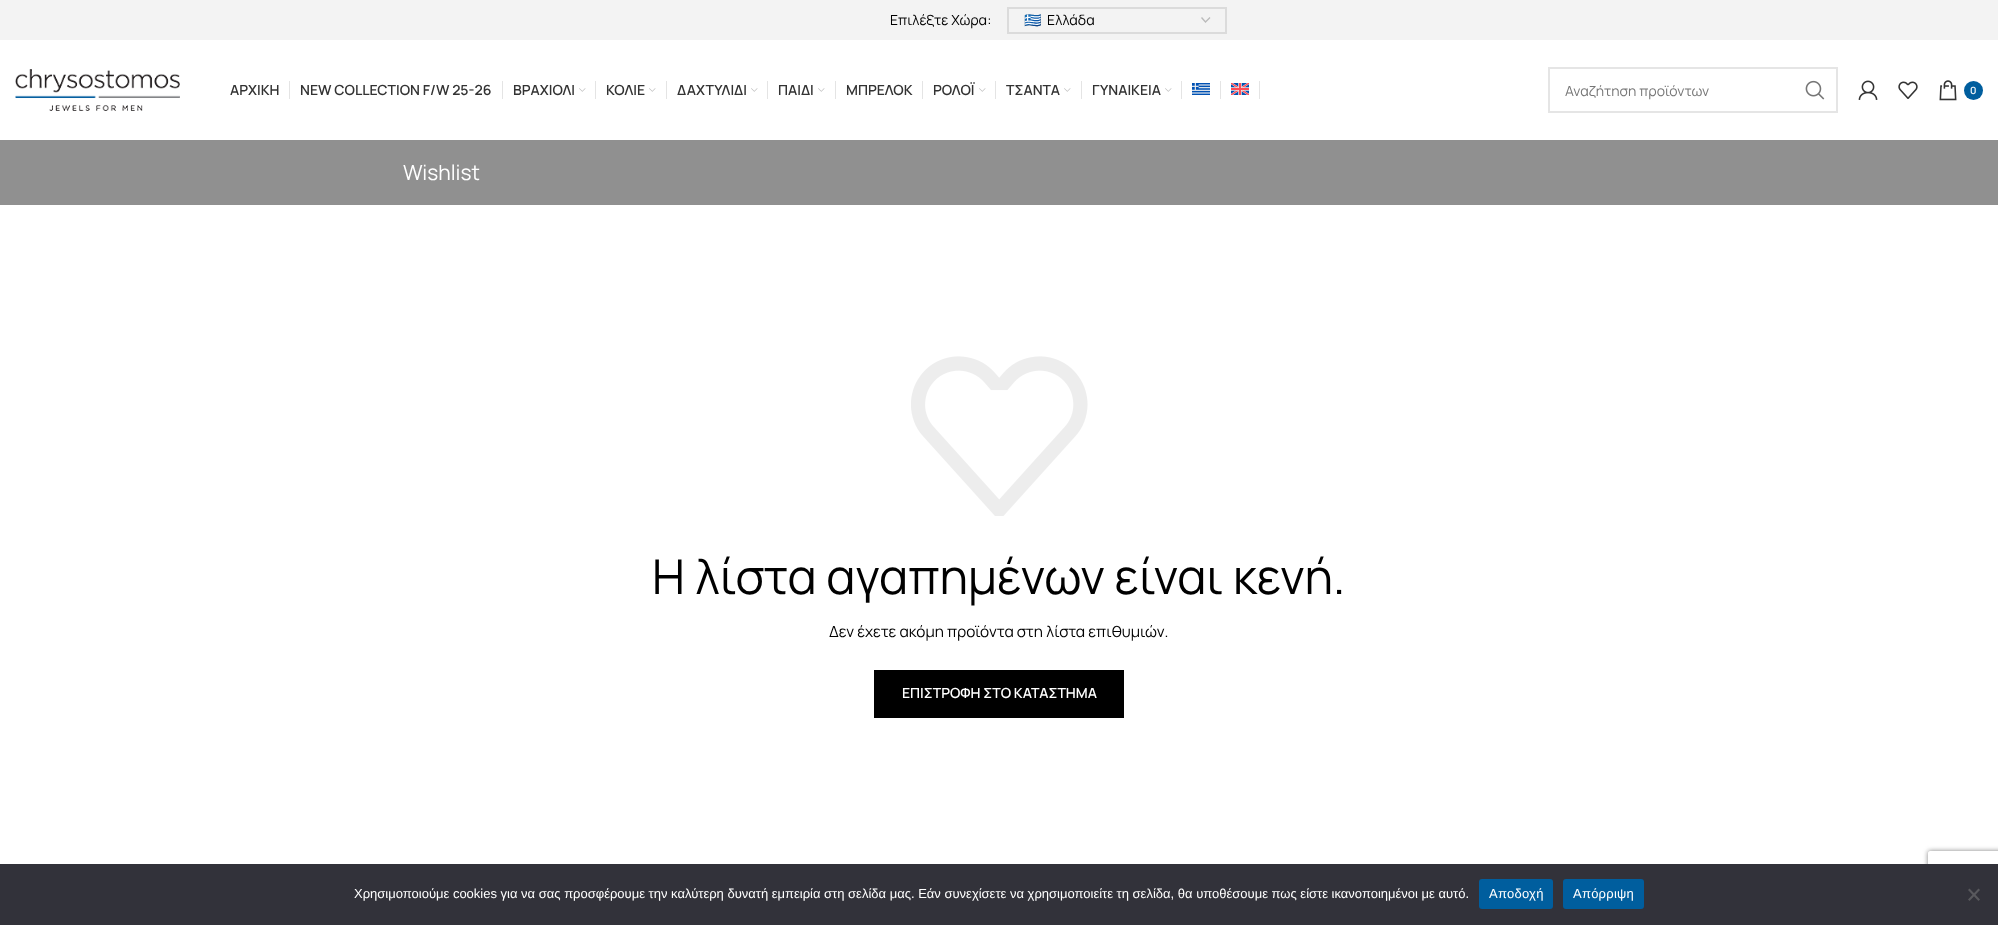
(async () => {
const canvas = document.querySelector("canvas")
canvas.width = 1998
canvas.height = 925
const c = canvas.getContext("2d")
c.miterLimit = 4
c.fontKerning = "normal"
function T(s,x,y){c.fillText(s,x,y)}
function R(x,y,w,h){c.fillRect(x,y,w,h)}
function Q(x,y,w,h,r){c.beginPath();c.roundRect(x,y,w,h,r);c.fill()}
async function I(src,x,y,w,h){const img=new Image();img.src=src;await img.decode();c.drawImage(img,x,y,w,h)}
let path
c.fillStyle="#fff"
R(0,0,1998,925)
c.fillStyle="#f3f3f3"
R(0,0,1998,40)
c.font="14px Manrope"
c.fillStyle="#000"
T("Επιλέξτε Χώρα:",890,25)
path = new Path2D("M1201.5 17.5l4 4.5l4.5-4.5")
c.strokeStyle="#bbb"
c.lineWidth=1.4
c.stroke(path)
c.strokeStyle="#dbdbdb"
c.lineWidth=2
c.strokeRect(1008,8,218,25)
c.save()
c.beginPath()
c.rect(1024,9,171,22)
c.clip()
c.font="14px Noto Color Emoji"
T("🇬🇷",1024,25)
c.restore()
T("Ελλάδα",1047,25)
await I("1.png",15,69,165,42)
c.font="600 14px Manrope"
c.fillStyle="#333"
T("ΑΡΧΙΚΗ",230,95)
c.fillStyle="#e4e4e4"
R(289,81,1,18)
c.fillStyle="#333"
T("NEW COLLECTION F/W 25-26",300,95)
c.fillStyle="#e4e4e4"
R(502,81,1,18)
c.fillStyle="#333"
T("ΒΡΑΧΙΟΛΙ",513,95)
await I("2.png",579,88,7,4)
c.fillStyle="#e4e4e4"
R(595,81,1,18)
c.fillStyle="#333"
T("ΚΟΛΙΕ",606,95)
await I("2.png",649,88,7,4)
c.fillStyle="#e4e4e4"
R(666,81,1,18)
c.fillStyle="#333"
T("ΔΑΧΤΥΛΙΔΙ",677,95)
await I("2.png",751,88,7,4)
c.fillStyle="#e4e4e4"
R(767,81,1,18)
c.fillStyle="#333"
T("ΠΑΙΔΙ",778,95)
await I("2.png",818,88,7,4)
c.fillStyle="#e4e4e4"
R(835,81,1,18)
c.fillStyle="#333"
T("ΜΠΡΕΛΟΚ",846,95)
c.fillStyle="#e4e4e4"
R(922,81,1,18)
c.fillStyle="#333"
T("ΡΟΛΟΪ",933,95)
await I("2.png",979,88,7,4)
c.fillStyle="#e4e4e4"
R(995,81,1,18)
c.fillStyle="#333"
T("ΤΣΑΝΤΑ",1006,95)
await I("2.png",1064,88,7,4)
c.fillStyle="#e4e4e4"
R(1081,81,1,18)
c.fillStyle="#333"
T("ΓΥΝΑΙΚΕΙΑ",1092,95)
await I("2.png",1165,88,7,4)
c.fillStyle="#e4e4e4"
R(1181,81,1,18)
await I("3.png",1192,83,18,12)
R(1220,81,1,18)
await I("4.png",1231,83,18,12)
R(1259,81,1,18)
c.strokeStyle="#e5e5e5"
c.strokeRect(1549,68,288,44)
c.font="14px Manrope"
c.fillStyle="#767676"
T("Αναζήτηση προϊόντων",1565,96)
await I("5.png",1805,80,20,20)
await I("6.png",1858,80,20,20)
await I("7.png",1898,81,20,18)
await I("8.png",1939,80,18,21)
c.fillStyle="#005e9e"
c.beginPath()
c.arc(1973.5,90.5,9.5,0,7)
c.fill()
c.font="600 10px Manrope"
c.fillStyle="#fff"
T("0",1970,94)
c.fillStyle="#909090"
R(0,140,1998,65)
c.font="21px Manrope"
c.fillStyle="#fff"
T("Wishlist",403,180)
await I("9.png",911,356,177,160)
c.font="48px Manrope"
c.fillStyle="#000"
T("Η λίστα αγαπημένων είναι κενή.",652,594)
c.font="15.4px Manrope"
T("Δεν έχετε ακόμη προϊόντα στη λίστα επιθυμιών.",829,637)
R(874,670,250,48)
c.font="600 14px Manrope"
c.fillStyle="#fff"
T("ΕΠΙΣΤΡΟΦΗ ΣΤΟ ΚΑΤΑΣΤΗΜΑ",902,698)
c.save()
path = new Path2D("M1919 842h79v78h-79zm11 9h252c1 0 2 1 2 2v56c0 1-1 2-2 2h-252c-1 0-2-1-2-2v-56c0-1 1-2 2-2z")
c.clip(path,"evenodd")
c.fillStyle="#808080"
c.filter="blur(2.5px)"
c.beginPath()
c.roundRect(1928,851,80,60,2)
c.fill()
c.filter="none"
c.restore()
c.fillStyle="#32323a"
R(0,864,1998,61)
c.font="13px Liberation Sans"
c.fillStyle="#fff"
T("Χρησιμοποιούμε cookies για να σας προσφέρουμε την καλύτερη δυνατή εμπειρία στη σελίδα μας. Εάν συνεχίσετε να χρησιμοποιείτε τη σελίδα, θα υποθέσουμε πως είστε ικανοποιημένοι με αυτό.",354,898)
c.fillStyle="#005e9e"
Q(1479,879,74,30,3)
c.letterSpacing="0.25px"
c.fillStyle="#fff"
T("Αποδοχή",1489,898)
c.fillStyle="#005e9e"
Q(1563,879,81,30,3)
c.fillStyle="#fff"
T("Απόρριψη",1573,898)
c.fillStyle="#59595d"
path = new Path2D("M1978.5 888.5l1.5 1.5l-10.5 11l-1.5-1.5z")
c.fill(path)
path = new Path2D("M1968 890l1.5-1.5l10.5 11l-1.5 1.5z")
c.fill(path)
})()
